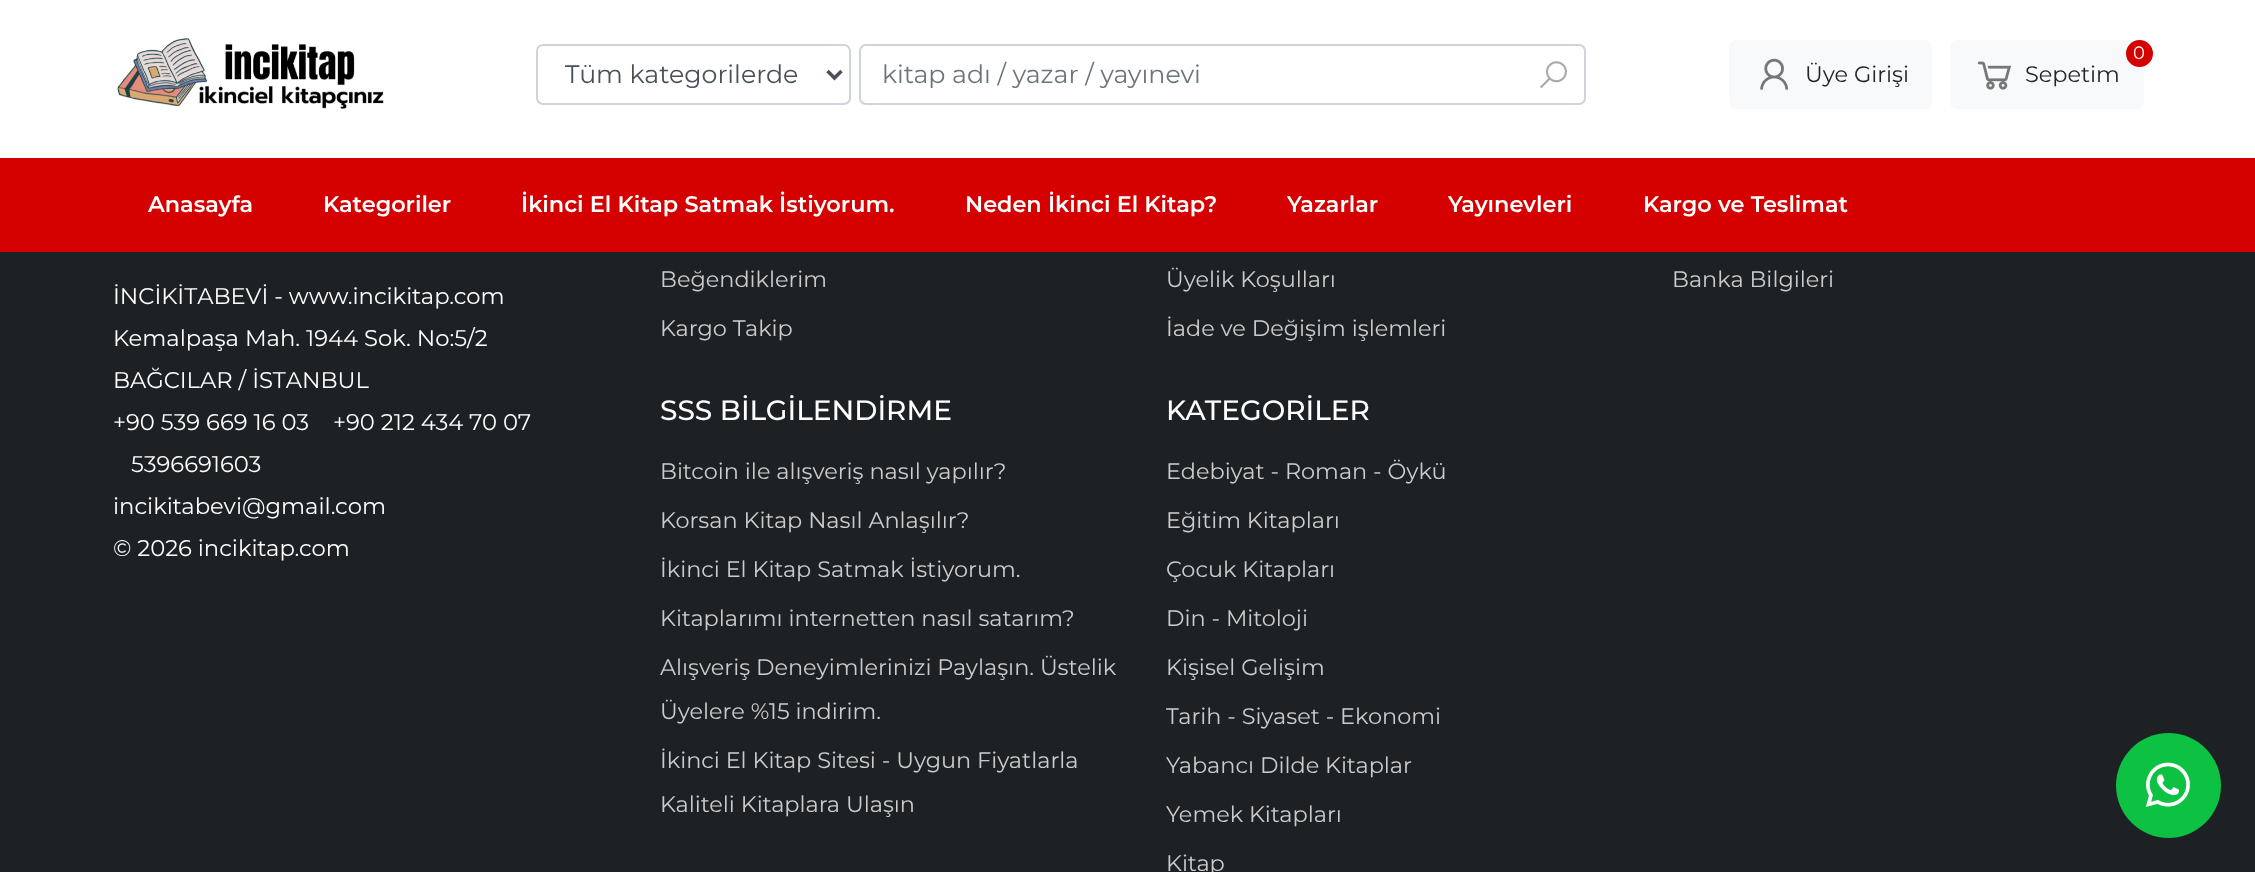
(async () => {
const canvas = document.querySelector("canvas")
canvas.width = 2255
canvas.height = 872
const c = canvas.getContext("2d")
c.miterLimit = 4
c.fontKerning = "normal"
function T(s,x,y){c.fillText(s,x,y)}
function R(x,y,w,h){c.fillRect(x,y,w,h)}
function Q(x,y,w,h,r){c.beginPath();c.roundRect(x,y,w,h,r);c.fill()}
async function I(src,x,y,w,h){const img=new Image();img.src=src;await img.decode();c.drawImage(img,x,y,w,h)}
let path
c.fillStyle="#1d2124"
R(0,0,2255,872)
c.fillStyle="#fff"
R(0,0,2255,158)
await I("1.png",117,38,267,71)
c.beginPath()
c.roundRect(537,45,313,59,6)
c.strokeStyle="#ced4da"
c.lineWidth=2
c.stroke()
path = new Path2D("M827.5 71l7 7l7-7")
c.strokeStyle="#495057"
c.lineWidth=3.5
c.stroke(path)
c.font="25.25px Montserrat"
c.fillStyle="#495057"
T("Tüm kategorilerde",565,83)
c.beginPath()
c.roundRect(860,45,725,59,6)
c.strokeStyle="#ced4da"
c.lineWidth=2
c.stroke()
c.fillStyle="#6c757d"
T("kitap adı / yazar / yayınevi",882,83)
await I("2.png",1540,61,27,28)
c.fillStyle="#f8f9fa"
Q(1729,40,203,69,7)
await I("3.png",1760,58,29,32)
c.font="22.4px Montserrat"
c.fillStyle="#212529"
T("Üye Girişi",1805,82)
c.fillStyle="#f8f9fa"
Q(1950,40,194,69,7)
c.fillStyle="#d50000"
c.beginPath()
c.arc(2139.5,53.5,13.5,0,7)
c.fill()
c.font="18px Montserrat"
c.fillStyle="#fff"
T("0",2133,59)
await I("4.png",1977,61,34,29)
c.font="22.4px Montserrat"
c.fillStyle="#212529"
T("Sepetim",2025,82)
c.fillStyle="#d50000"
R(0,158,2255,94)
c.font="600 22.4px Montserrat"
c.fillStyle="#fff"
T("Anasayfa",148,212)
T("Kategoriler",323,212)
T("İkinci El Kitap Satmak İstiyorum.",521,212)
T("Neden İkinci El Kitap?",965,212)
T("Yazarlar",1287,212)
T("Yayınevleri",1448,212)
T("Kargo ve Teslimat",1643,212)
c.font="22.7px Montserrat"
T("İNCİKİTABEVİ - www.incikitap.com",113,304)
T("Kemalpaşa Mah. 1944 Sok. No:5/2",113,346)
T("BAĞCILAR / İSTANBUL",113,388)
T("+90 539 669 16 03",113,430)
T("+90 212 434 70 07",333,430)
T("5396691603",131,472)
T("incikitabevi@gmail.com",113,514)
T("© 2026 incikitap.com",113,556)
c.font="22.4px Montserrat"
c.fillStyle="#ccc"
T("Beğendiklerim",660,287)
T("Kargo Takip",660,336)
T("Üyelik Koşulları",1166,287)
T("İade ve Değişim işlemleri",1166,336)
T("Banka Bilgileri",1672,287)
c.font="500 28px Montserrat"
c.fillStyle="#fff"
T("SSS BİLGİLENDİRME",660,420)
c.font="22.4px Montserrat"
c.fillStyle="#ccc"
T("Bitcoin ile alışveriş nasıl yapılır?",660,479)
T("Korsan Kitap Nasıl Anlaşılır?",660,528)
T("İkinci El Kitap Satmak İstiyorum.",660,577)
T("Kitaplarımı internetten nasıl satarım?",660,626)
T("Alışveriş Deneyimlerinizi Paylaşın. Üstelik",660,675)
T("Üyelere %15 indirim.",660,719)
T("İkinci El Kitap Sitesi - Uygun Fiyatlarla",660,768)
T("Kaliteli Kitaplara Ulaşın",660,812)
c.font="500 28px Montserrat"
c.fillStyle="#fff"
T("KATEGORİLER",1166,420)
c.font="22.4px Montserrat"
c.fillStyle="#ccc"
T("Edebiyat - Roman - Öykü",1166,479)
T("Eğitim Kitapları",1166,528)
T("Çocuk Kitapları",1166,577)
T("Din - Mitoloji",1166,626)
T("Kişisel Gelişim",1166,675)
T("Tarih - Siyaset - Ekonomi",1166,724)
T("Yabancı Dilde Kitaplar",1166,773)
T("Yemek Kitapları",1166,822)
T("Kitap",1166,871)
c.fillStyle="#0dc143"
c.beginPath()
c.arc(2168.5,785.5,52.5,0,7)
c.fill()
await I("5.png",2145,762,45,45)
})()
